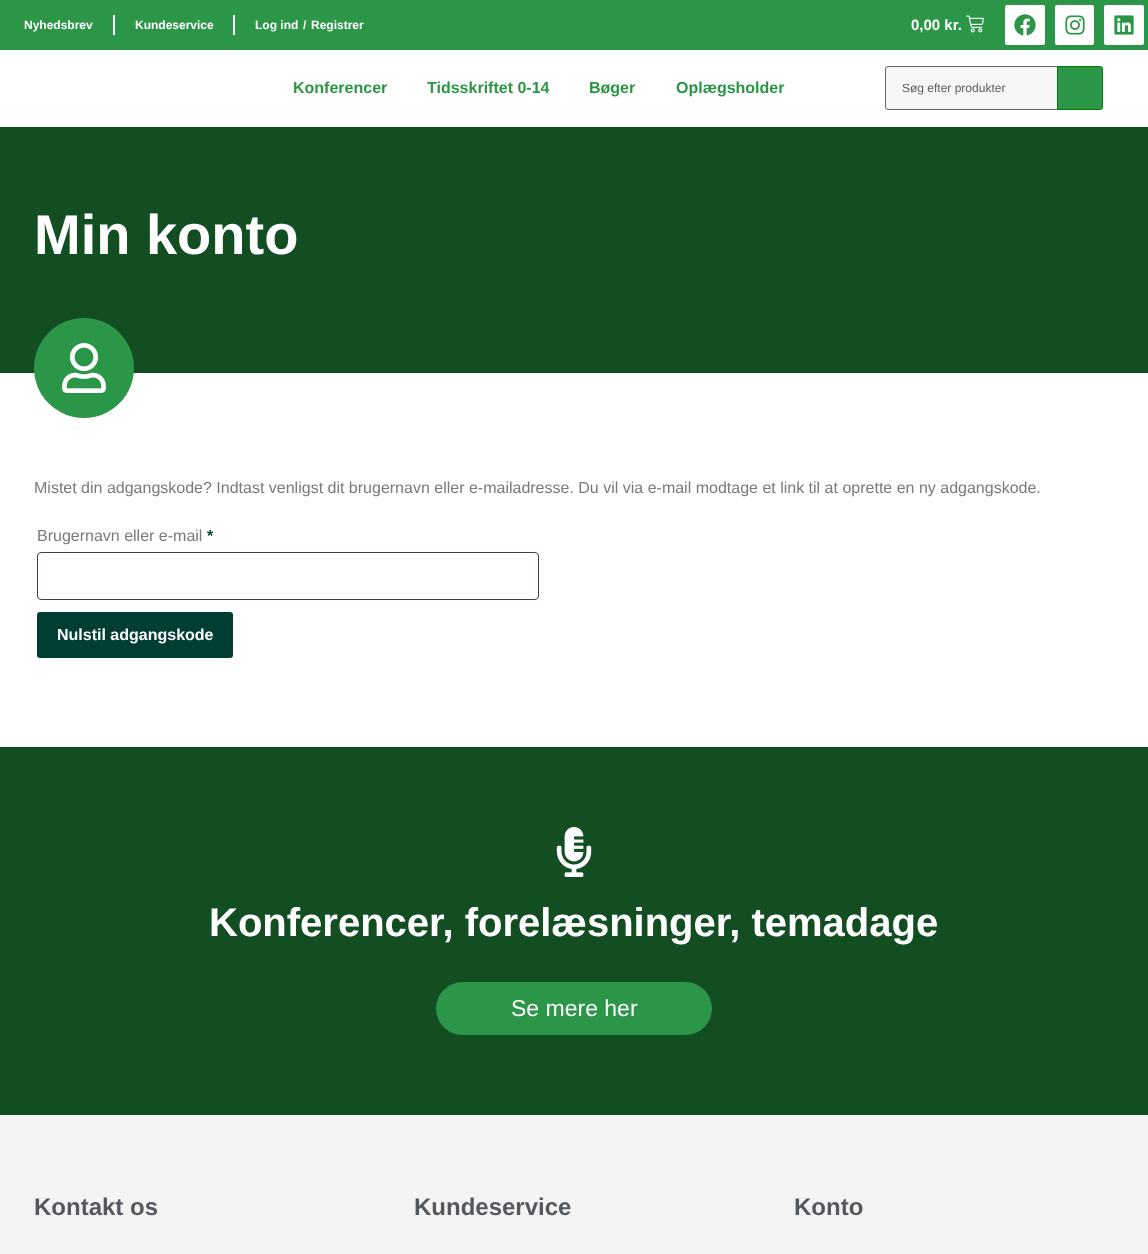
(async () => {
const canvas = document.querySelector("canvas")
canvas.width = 1148
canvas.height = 1254
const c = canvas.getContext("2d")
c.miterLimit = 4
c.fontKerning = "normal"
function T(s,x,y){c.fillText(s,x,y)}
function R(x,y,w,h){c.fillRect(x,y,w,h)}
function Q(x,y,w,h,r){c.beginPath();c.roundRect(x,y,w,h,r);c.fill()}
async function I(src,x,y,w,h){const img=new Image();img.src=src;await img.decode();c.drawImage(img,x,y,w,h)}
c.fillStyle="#fff"
R(0,0,1148,1254)
c.fillStyle="#2b9648"
R(0,0,1148,50)
c.fillStyle="#fff"
R(113,15,2,20)
c.font="bold 12px Liberation Sans"
T("Nyhedsbrev",24,29)
R(233,15,2,20)
T("Kundeservice",135,29)
T("Log ind",255,29)
T("/",303,29)
T("Registrer",311,29)
c.font="bold 15px Liberation Sans"
T("0,00 kr.",911,30)
await I("1.png",966,15,18,18)
Q(1005,5,40,40,2)
await I("2.png",1014,14,22,22)
Q(1055,5,39,40,2)
await I("3.png",1065,15,20,20)
Q(1104,5,40,40,2)
await I("4.png",1114,15,20,20)
c.font="bold 16px Liberation Sans"
c.fillStyle="#2b9648"
T("Konferencer",293,93)
T("Tidsskriftet 0-14",427,93)
T("Bøger",589,93)
T("Oplægsholder",676,93)
c.fillStyle="#f7f6f7"
c.beginPath()
c.roundRect(885.5,66.5,185,43,2.5)
c.fill()
c.strokeStyle="#666"
c.stroke()
c.font="12px Liberation Sans"
c.fillStyle="#5b5b5b"
T("Søg efter produkter",902,92)
c.fillStyle="#2b9648"
c.beginPath()
c.roundRect(1057.5,66.5,45,43,[0,2.5,2.5,0])
c.fill()
c.strokeStyle="#008000"
c.stroke()
c.fillStyle="#134e23"
R(0,127,1148,246)
c.font="bold 56px Liberation Sans"
c.fillStyle="#fff"
T("Min konto",34,254)
c.fillStyle="#2b9648"
c.beginPath()
c.arc(84,368,50,0,7)
c.fill()
await I("5.png",62,343,44,50)
c.font="16px Liberation Sans"
c.fillStyle="#7a7a7a"
T("Mistet din adgangskode? Indtast venligst dit brugernavn eller e-mailadresse. Du vil via e-mail modtage et link til at oprette en ny adgangskode.",34,493)
T("Brugernavn eller e-mail",37,541)
c.font="bold 16px Liberation Sans"
c.fillStyle="#003d32"
T("*",207,541)
c.beginPath()
c.roundRect(37.5,552.5,501,47,3.5)
c.strokeStyle="#4d3939"
c.stroke()
Q(37,612,196,46,3)
c.fillStyle="#fff"
T("Nulstil adgangskode",57,640)
c.fillStyle="#134e23"
R(0,747,1148,368)
await I("6.png",556,827,36,50)
c.font="bold 40px Liberation Sans"
c.fillStyle="#fff"
T("Konferencer, forelæsninger, temadage",209,936)
c.fillStyle="#2b9648"
Q(436,982,276,53,26.5)
c.font="23px Liberation Sans"
c.fillStyle="#fff"
T("Se mere her",511,1016)
c.fillStyle="#f4f4f4"
R(0,1115,1148,139)
c.font="bold 24px Liberation Sans"
c.fillStyle="#54595f"
T("Kontakt os",34,1215)
T("Kundeservice",414,1215)
T("Konto",794,1215)
})()
